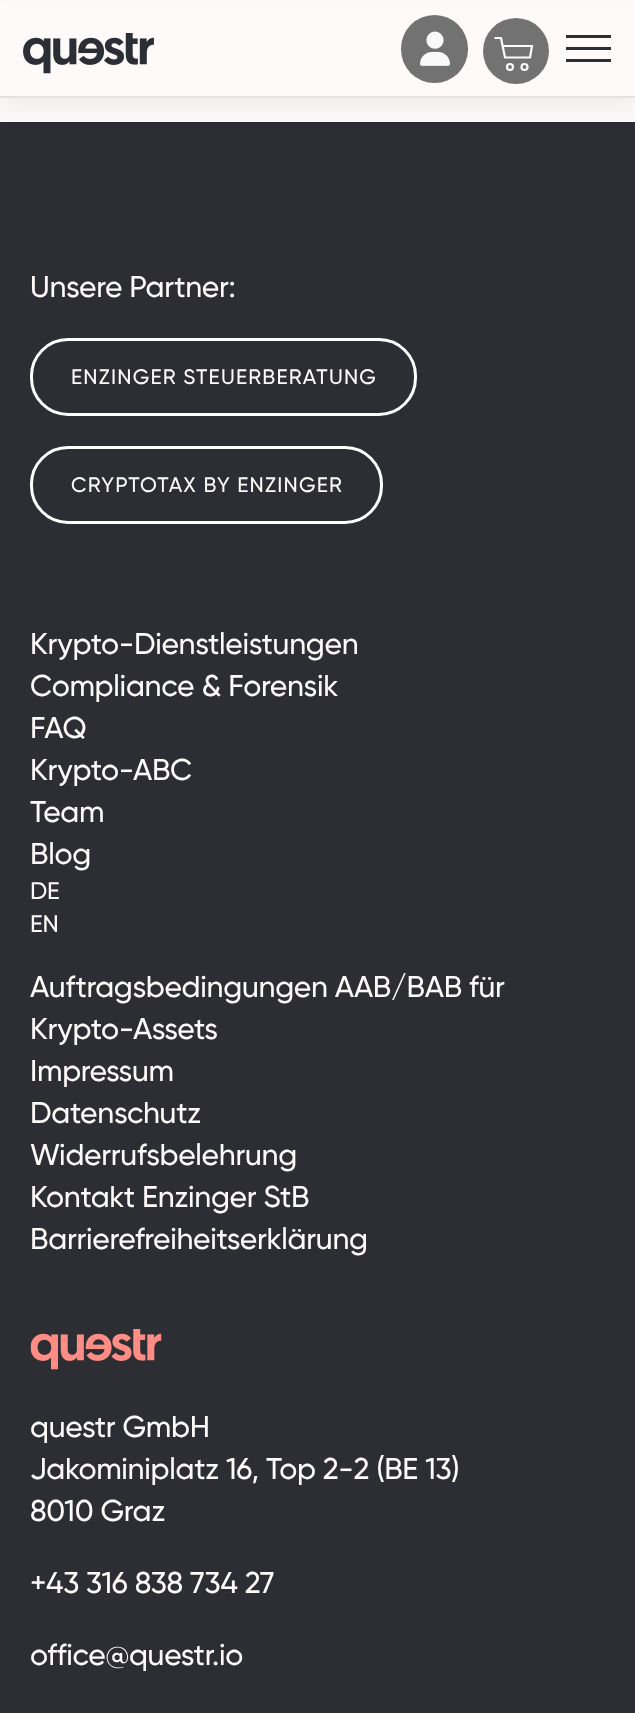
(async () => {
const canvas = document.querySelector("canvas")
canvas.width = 635
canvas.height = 1713
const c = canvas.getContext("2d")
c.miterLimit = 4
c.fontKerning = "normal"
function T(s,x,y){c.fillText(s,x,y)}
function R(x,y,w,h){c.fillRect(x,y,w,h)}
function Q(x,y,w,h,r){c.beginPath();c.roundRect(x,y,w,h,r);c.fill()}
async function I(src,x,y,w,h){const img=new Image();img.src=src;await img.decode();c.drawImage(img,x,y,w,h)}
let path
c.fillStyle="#fefaf9"
R(0,0,635,1713)
c.fillStyle="#2c2e33"
R(0,122,635,1591)
c.fillStyle="#0000000d"
c.filter="blur(12px)"
c.beginPath()
c.rect(0,12,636,98)
c.fill()
c.filter="none"
c.fillStyle="#fefaf9"
R(0,2,635,94)
c.fillStyle="#e5e1e0"
R(0,96,635,2)
await I("1.png",23,33,131,41)
c.fillStyle="#727272"
Q(401,15,67,68,33.5)
await I("2.png",420,31,30,35)
c.beginPath()
c.arc(516,51,33,0,7)
c.fill()
path = new Path2D("M494.5 38h6.5l4 19.5h25l2-11.5h-29")
c.strokeStyle="#fefaf9"
c.lineWidth=2.2
c.stroke(path)
c.beginPath()
c.arc(510,67,3,0,7)
c.stroke()
c.beginPath()
c.arc(524.5,67,3,0,7)
c.stroke()
c.fillStyle="#2c2e33"
R(566,35,45,3)
R(566,47,45,3)
R(566,59,45,3)
c.letterSpacing="-0.3px"
c.font="500 30px Gilroy"
c.fillStyle="#fefaf9"
T("Unsere Partner:",30,297)
c.beginPath()
c.roundRect(31.5,339.5,384,75,36.5)
c.strokeStyle="#fff"
c.lineWidth=3
c.stroke()
c.letterSpacing="1.2px"
c.font="500 21px Gilroy"
T("ENZINGER STEUERBERATUNG",71,384)
c.beginPath()
c.roundRect(31.5,447.5,350,75,36.5)
c.stroke()
T("CRYPTOTAX BY ENZINGER",71,492)
c.letterSpacing="-0.3px"
c.font="500 30px Gilroy"
T("Krypto-Dienstleistungen",30,654)
T("Compliance & Forensik",30,696)
T("FAQ",30,738)
T("Krypto-ABC",30,780)
T("Team",30,822)
T("Blog",30,864)
c.font="500 24px Gilroy"
T("DE",30,899)
T("EN",30,932)
c.font="500 30px Gilroy"
T("Auftragsbedingungen AAB/BAB für",30,997)
T("Krypto-Assets",30,1039)
T("Impressum",30,1081)
T("Datenschutz",30,1123)
T("Widerrufsbelehrung",30,1165)
T("Kontakt Enzinger StB",30,1207)
T("Barrierefreiheitserklärung",30,1249)
await I("3.png",30,1329,132,41)
T("questr GmbH",30,1437)
T("Jakominiplatz 16, Top 2-2 (BE 13)",30,1479)
T("8010 Graz",30,1521)
T("+43 316 838 734 27",30,1593)
T("office@questr.io",30,1665)
})()
